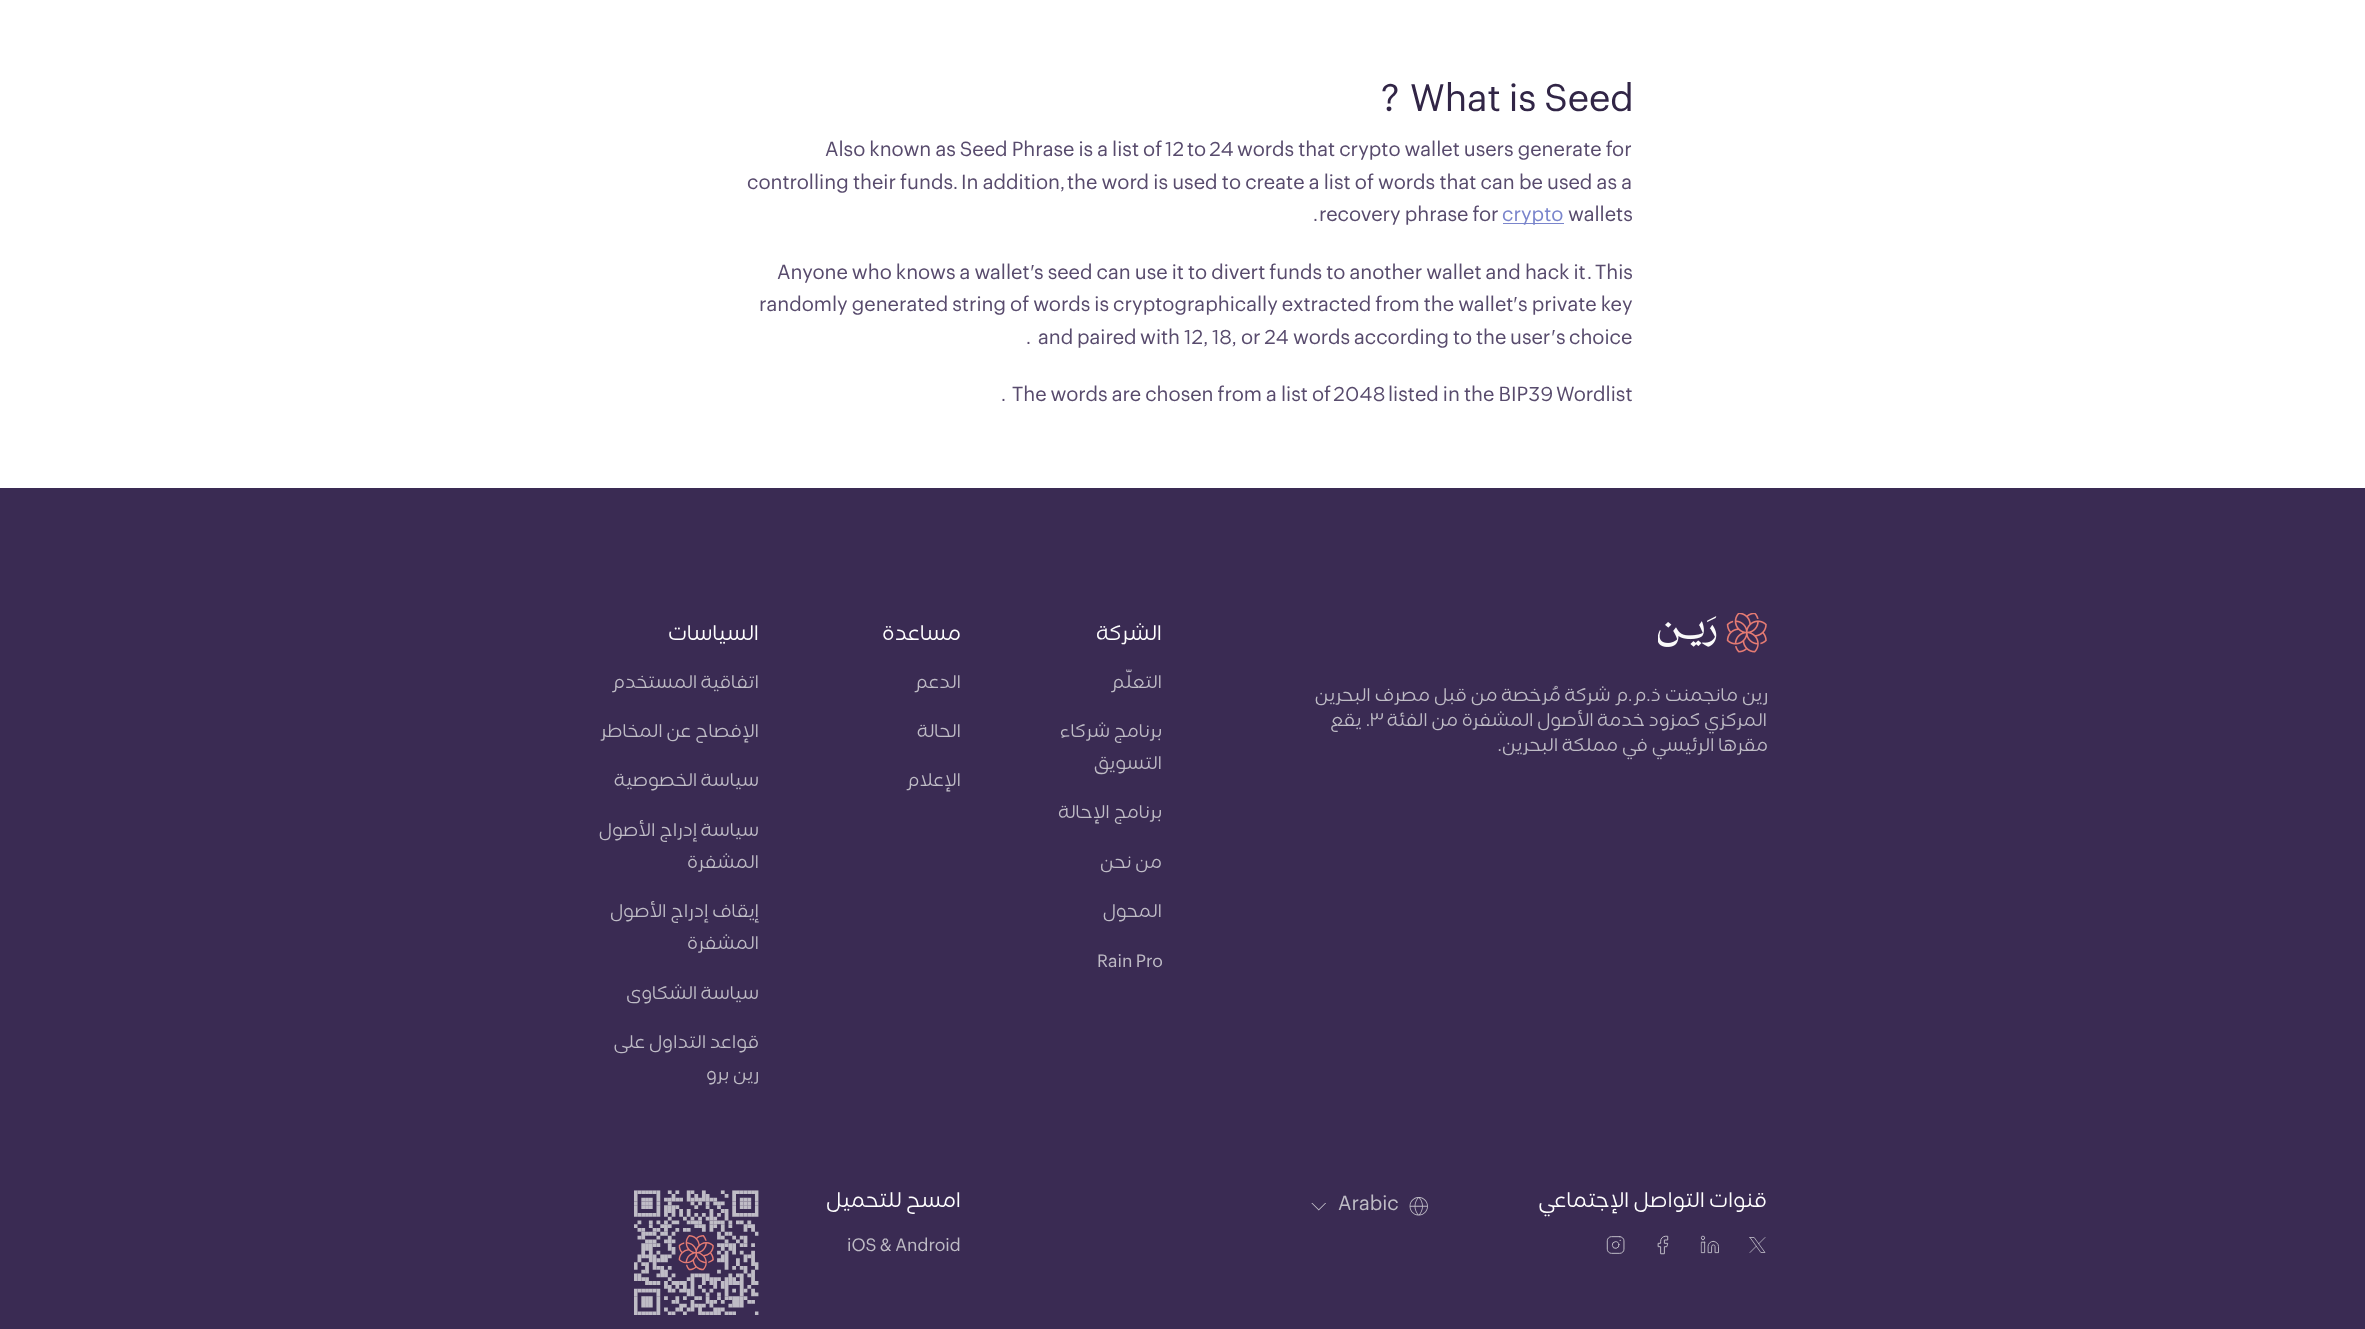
(async () => {
const canvas = document.querySelector("canvas")
canvas.width = 2365
canvas.height = 1329
const c = canvas.getContext("2d")
c.miterLimit = 4
c.fontKerning = "normal"
function T(s,x,y){c.fillText(s,x,y)}
function R(x,y,w,h){c.fillRect(x,y,w,h)}
async function I(src,x,y,w,h){const img=new Image();img.src=src;await img.decode();c.drawImage(img,x,y,w,h)}
c.fillStyle="#3a2b53"
R(0,0,2365,1329)
c.fillStyle="#fff"
R(0,0,2365,488)
c.font="37.5px Graphik"
c.fillStyle="#312546"
T("?",1381,111)
c.wordSpacing="-2px"
T("What is Seed",1410,111)
c.wordSpacing="-1.25px"
c.font="20px Graphik"
c.fillStyle="#584b6d"
T("Also known as Seed Phrase is a list of",825,156)
c.wordSpacing="0px"
c.font="20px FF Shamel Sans"
T("12",1165,156)
c.font="20px Graphik"
T("to",1187,156)
c.font="20px FF Shamel Sans"
T("24",1209,156)
c.wordSpacing="-1.25px"
c.font="20px Graphik"
T("words that crypto wallet users generate for",1237,156)
c.wordSpacing="-1.1px"
T("controlling their funds",747,189)
c.wordSpacing="0px"
c.font="20px FF Shamel Sans"
T(".",953,189)
c.wordSpacing="-1.1px"
c.font="20px Graphik"
T("In addition",961,189)
c.wordSpacing="0px"
c.font="20px FF Shamel Sans"
T(",",1060,189)
c.wordSpacing="-1.1px"
c.font="20px Graphik"
T("the word is used to create a list of words that can be used as a",1067,189)
c.wordSpacing="0px"
c.font="20px FF Shamel Sans"
T(".",1313,221)
c.wordSpacing="-1.25px"
c.font="20px Graphik"
T("recovery phrase for",1319,221)
c.fillStyle="#7a85cc"
R(1503,223,61,1)
c.wordSpacing="0px"
T("crypto",1502,221)
c.fillStyle="#584b6d"
T("wallets",1568,221)
c.wordSpacing="-1.25px"
T("Anyone who knows a wallet",777,279)
c.wordSpacing="0px"
c.font="20px FF Shamel Sans"
T("'",1030,279)
c.wordSpacing="-1.25px"
c.font="20px Graphik"
T("s seed can use it to divert funds to another wallet and hack it",1034,279)
c.wordSpacing="0px"
T("This",1595,279)
c.font="20px FF Shamel Sans"
T(".",1587,279)
c.wordSpacing="-1.25px"
c.font="20px Graphik"
T("randomly generated string of words is cryptographically extracted from the wallet",759,311)
c.wordSpacing="0px"
c.font="20px FF Shamel Sans"
T("'",1513,311)
c.wordSpacing="-1.25px"
c.font="20px Graphik"
T("s private key",1518,311)
c.wordSpacing="0px"
c.font="20px FF Shamel Sans"
T(".",1026,344)
c.font="20px Graphik"
T("and",1038,344)
T("paired",1077,344)
T("with",1140,344)
c.font="20px FF Shamel Sans"
T("12, 18,",1184,344)
c.font="20px Graphik"
T("or",1241,344)
c.font="20px FF Shamel Sans"
T("24",1264,344)
c.font="20px Graphik"
T("words",1293,344)
T("according",1354,344)
T("to",1453,344)
T("the",1476,344)
T("user",1510,344)
c.font="20px FF Shamel Sans"
T("'",1551,344)
c.font="20px Graphik"
T("s",1556,344)
T("choice",1569,344)
c.font="20px FF Shamel Sans"
T(".",1001,401)
c.wordSpacing="-1.25px"
c.font="20px Graphik"
T("The words are chosen from a list of",1012,401)
c.wordSpacing="0px"
c.font="20px FF Shamel Sans"
T("2048",1333,401)
c.wordSpacing="-1.25px"
c.font="20px Graphik"
T("listed in the BIP",1388,401)
c.wordSpacing="0px"
c.font="20px FF Shamel Sans"
T("39",1528,401)
c.font="20px Graphik"
T("Wordlist",1556,401)
c.direction="rtl"
c.font="20px FF Shamel Sans"
c.fillStyle="#fff"
T("السياسات",759,640)
c.font="17.5px FF Shamel Sans"
c.fillStyle="#bfbcc6"
T("اتفاقية المستخدم",759,688)
T("الإفصاح عن المخاطر",759,737)
T("سياسة الخصوصية",759,786)
T("سياسة إدراج الأصول",759,836)
T("المشفرة",759,868)
T("إيقاف إدراج الأصول",759,917)
T("المشفرة",759,949)
T("سياسة الشكاوى",759,999)
T("قواعد التداول على",759,1048)
T("رين برو",759,1080)
c.font="20px FF Shamel Sans"
c.fillStyle="#fff"
T("مساعدة",961,640)
c.font="17.5px FF Shamel Sans"
c.fillStyle="#bfbcc6"
T("الدعم",961,688)
T("الحالة",961,737)
T("الإعلام",961,786)
c.font="20px FF Shamel Sans"
c.fillStyle="#fff"
T("الشركة",1162,640)
c.font="17.5px FF Shamel Sans"
c.fillStyle="#bfbcc6"
T("التعلّم",1162,688)
T("برنامج شركاء",1162,737)
T("التسويق",1162,769)
T("برنامج الإحالة",1162,818)
T("من نحن",1162,868)
T("المحول",1162,917)
c.wordSpacing="-1.25px"
c.direction="ltr"
c.font="17.5px Graphik"
T("Rain Pro",1097,967)
await I("1.png",1658,613,109,40)
c.wordSpacing="0.25px"
c.direction="rtl"
c.font="17.5px FF Shamel Sans"
T("رين مانجمنت ذ.م.م شركة مُرخصة من قبل مصرف البحرين",1768,701)
c.wordSpacing="1px"
T(". يقع",1370,726)
c.wordSpacing="0px"
c.direction="ltr"
T("٣",1370,726)
c.direction="rtl"
T("المركزي كمزود خدمة الأصول المشفرة من الفئة",1767,726)
c.wordSpacing="0.25px"
T("مقرها الرئيسي في مملكة البحرين.",1768,751)
await I("2.png",634,1190,125,125)
c.wordSpacing="0px"
c.font="20px FF Shamel Sans"
c.fillStyle="#fff"
T("امسح للتحميل",961,1207)
c.wordSpacing="-1.25px"
c.direction="ltr"
c.font="17.5px Graphik"
c.fillStyle="#bfbcc6"
T("iOS & Android",847,1251)
await I("3.png",1311,1203,15,8)
c.wordSpacing="0px"
c.font="20px Graphik"
T("Arabic",1338,1210)
await I("4.png",1409,1197,19,19)
c.direction="rtl"
c.font="20px FF Shamel Sans"
c.fillStyle="#fff"
T("قنوات التواصل الإجتماعي",1767,1207)
await I("5.png",1606,1236,19,18)
await I("6.png",1657,1235,12,20)
await I("7.png",1700,1235,19,19)
await I("8.png",1749,1237,17,16)
})()
